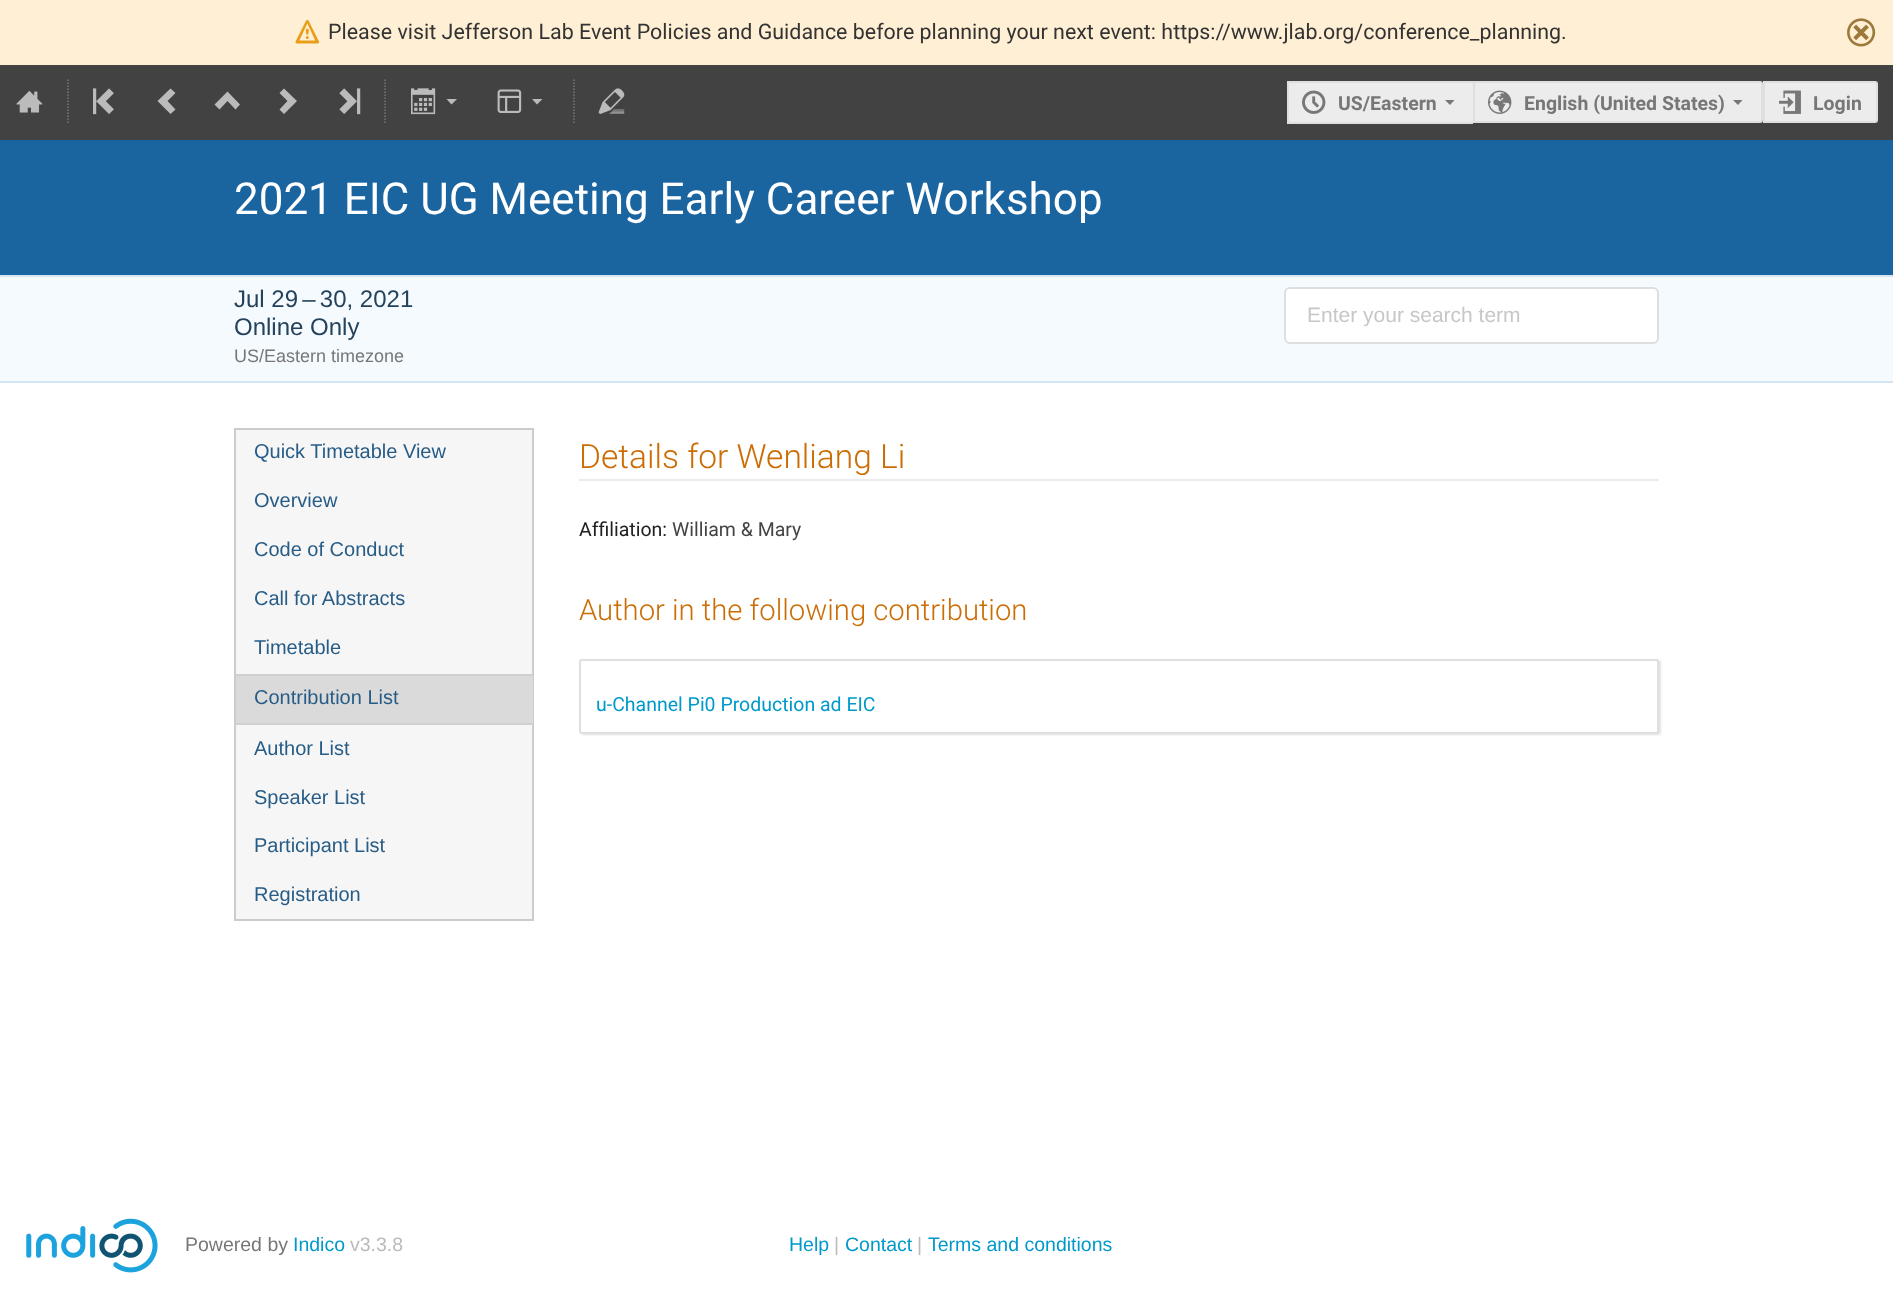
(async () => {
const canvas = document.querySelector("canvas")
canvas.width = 1893
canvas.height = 1289
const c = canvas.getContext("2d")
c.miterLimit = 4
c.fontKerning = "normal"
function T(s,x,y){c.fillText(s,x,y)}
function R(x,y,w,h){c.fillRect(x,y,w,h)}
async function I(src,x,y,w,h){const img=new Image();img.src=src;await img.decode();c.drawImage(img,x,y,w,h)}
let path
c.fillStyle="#fff"
R(0,0,1893,1289)
c.fillStyle="#ffefd4"
R(0,0,1893,65)
await I("1.png",295,19,24,25)
c.font="21.45px Roboto"
c.fillStyle="#333"
T("Please visit Jefferson Lab Event Policies and Guidance before planning your next event: https://www.jlab.org/conference_planning.",328,39)
await I("2.png",1847,18,29,29)
c.fillStyle="#424242"
R(0,65,1893,75)
await I("3.png",16,90,27,23)
path = new Path2D("M68 79.5v45")
c.strokeStyle="#777"
c.lineWidth=1.5
c.setLineDash([1.5,1.5])
c.stroke(path)
await I("4.png",93,88,21,27)
c.fillStyle="#bbb"
path = new Path2D("M170.5 114l5-4.5l-8-8.5l8-8l-5-4.5l-13 12.5z")
c.fill(path)
path = new Path2D("M214.5 104.5l5 5l8-8.5l8 8.5l4.5-5l-12.5-13z")
c.fill(path)
path = new Path2D("M284 88.5l-4.5 4.5l8 8l-8 8.5l4.5 4.5l13-13z")
c.fill(path)
await I("5.png",339,88,22,27)
path = new Path2D("M385 79.5v45")
c.stroke(path)
await I("6.png",411,88,25,27)
path = new Path2D("M446.5 99l5 5.5l5.5-5.5z")
c.fill(path)
await I("7.png",497,89,25,24)
path = new Path2D("M532 99l5 5.5l5.5-5.5z")
c.fill(path)
path = new Path2D("M574 79.5v45")
c.stroke(path)
await I("8.png",598,88,27,26)
c.fillStyle="#ececec"
R(1289,83,184,39)
c.fillStyle="#dfdfdf"
R(1287,81,186,2)
R(1287,122,186,2)
R(1287,81,2,42)
await I("9.png",1302,90,24,24)
c.font="bold 19.5px Roboto"
c.fillStyle="#777"
T("US/Eastern",1338,110)
path = new Path2D("M1445 100l5 5l4.5-5z")
c.fill(path)
c.fillStyle="#ececec"
c.beginPath()
c.roundRect(1474,82,288,40,[0,2,2,0])
c.fill()
c.strokeStyle="#dfdfdf"
c.lineWidth=2
c.setLineDash([])
c.stroke()
await I("10.png",1488,90,24,24)
c.fillStyle="#777"
T("English (United States)",1524,110)
path = new Path2D("M1733 100l5 5l4.5-5z")
c.fill(path)
c.fillStyle="#ececec"
c.beginPath()
c.roundRect(1764,82,113,40,[0,2,2,0])
c.fill()
c.stroke()
await I("11.png",1779,90,22,24)
c.fillStyle="#777"
T("Login",1813,110)
c.fillStyle="#1a64a0"
R(0,140,1893,135)
c.font="44px Roboto"
c.fillStyle="#fff"
T("2021 EIC UG Meeting Early Career Workshop",234,214)
c.fillStyle="#f5faff"
R(0,277,1893,104)
c.fillStyle="#d5e4f1"
R(0,275,1893,2)
R(0,381,1893,2)
c.font="24px Liberation Sans"
c.fillStyle="#24425a"
T("Jul 29 – 30, 2021",234,307)
T("Online Only",234,335)
c.font="18px Liberation Sans"
c.fillStyle="#777"
T("US/Eastern timezone",234,362)
c.fillStyle="#fff"
c.beginPath()
c.roundRect(1285,288,373,55,5)
c.fill()
c.strokeStyle="#dedede"
c.stroke()
c.save()
c.beginPath()
c.rect(1307,302,295,24)
c.clip()
c.font="21px 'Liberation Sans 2'"
c.fillStyle="#c7c7c7"
T("Enter your search term",1307,322)
c.restore()
c.fillStyle="#f6f6f6"
c.beginPath()
c.rect(235,429,298,491)
c.fill()
c.strokeStyle="#ccc"
c.stroke()
c.font="20px 'Liberation Sans 2'"
c.fillStyle="#275c86"
T("Quick Timetable View",254,458)
T("Overview",254,507)
T("Code of Conduct",254,556)
T("Call for Abstracts",254,605)
T("Timetable",254,654)
c.fillStyle="#dadada"
R(236,676,297,47)
c.fillStyle="#d0d0d0"
R(236,674,297,2)
R(236,723,297,2)
c.fillStyle="#275c86"
T("Contribution List",254,704)
T("Author List",254,755)
T("Speaker List",254,804)
T("Participant List",254,852)
T("Registration",254,901)
c.fillStyle="#ebebeb"
R(579,479,1080,2)
c.font="300 33.5px Roboto"
c.fillStyle="#cb6d04"
T("Details for Wenliang Li",579,468)
c.font="19.5px Roboto"
c.fillStyle="#212121"
T("Affiliation:",579,536)
c.fillStyle="#444"
T("William & Mary",672,536)
c.font="300 29.25px Roboto"
c.fillStyle="#cb6d04"
T("Author in the following contribution",579,620)
c.fillStyle="#e1e1e1"
c.filter="blur(1px)"
c.beginPath()
c.roundRect(581,660,1080,75,3)
c.fill()
c.filter="none"
c.fillStyle="#fff"
c.beginPath()
c.roundRect(580,660,1078,73,2)
c.fill()
c.strokeStyle="#dfdfdf"
c.stroke()
c.font="19.5px Roboto"
c.fillStyle="#09c"
T("u-Channel Pi0 Production ad EIC",596,711)
await I("12.png",26,1218,132,55)
c.font="19.5px Liberation Sans"
c.fillStyle="#777"
T("Powered by",185,1251)
c.fillStyle="#09c"
T("Indico",293,1251)
c.fillStyle="#bbb"
T("v3.3.8",350,1251)
c.fillStyle="#09c"
T("Help",789,1251)
c.fillStyle="#bbb"
T("|",834,1251)
c.fillStyle="#09c"
T("Contact",845,1251)
c.fillStyle="#bbb"
T("|",917,1251)
c.fillStyle="#09c"
T("Terms and conditions",928,1251)
})()
